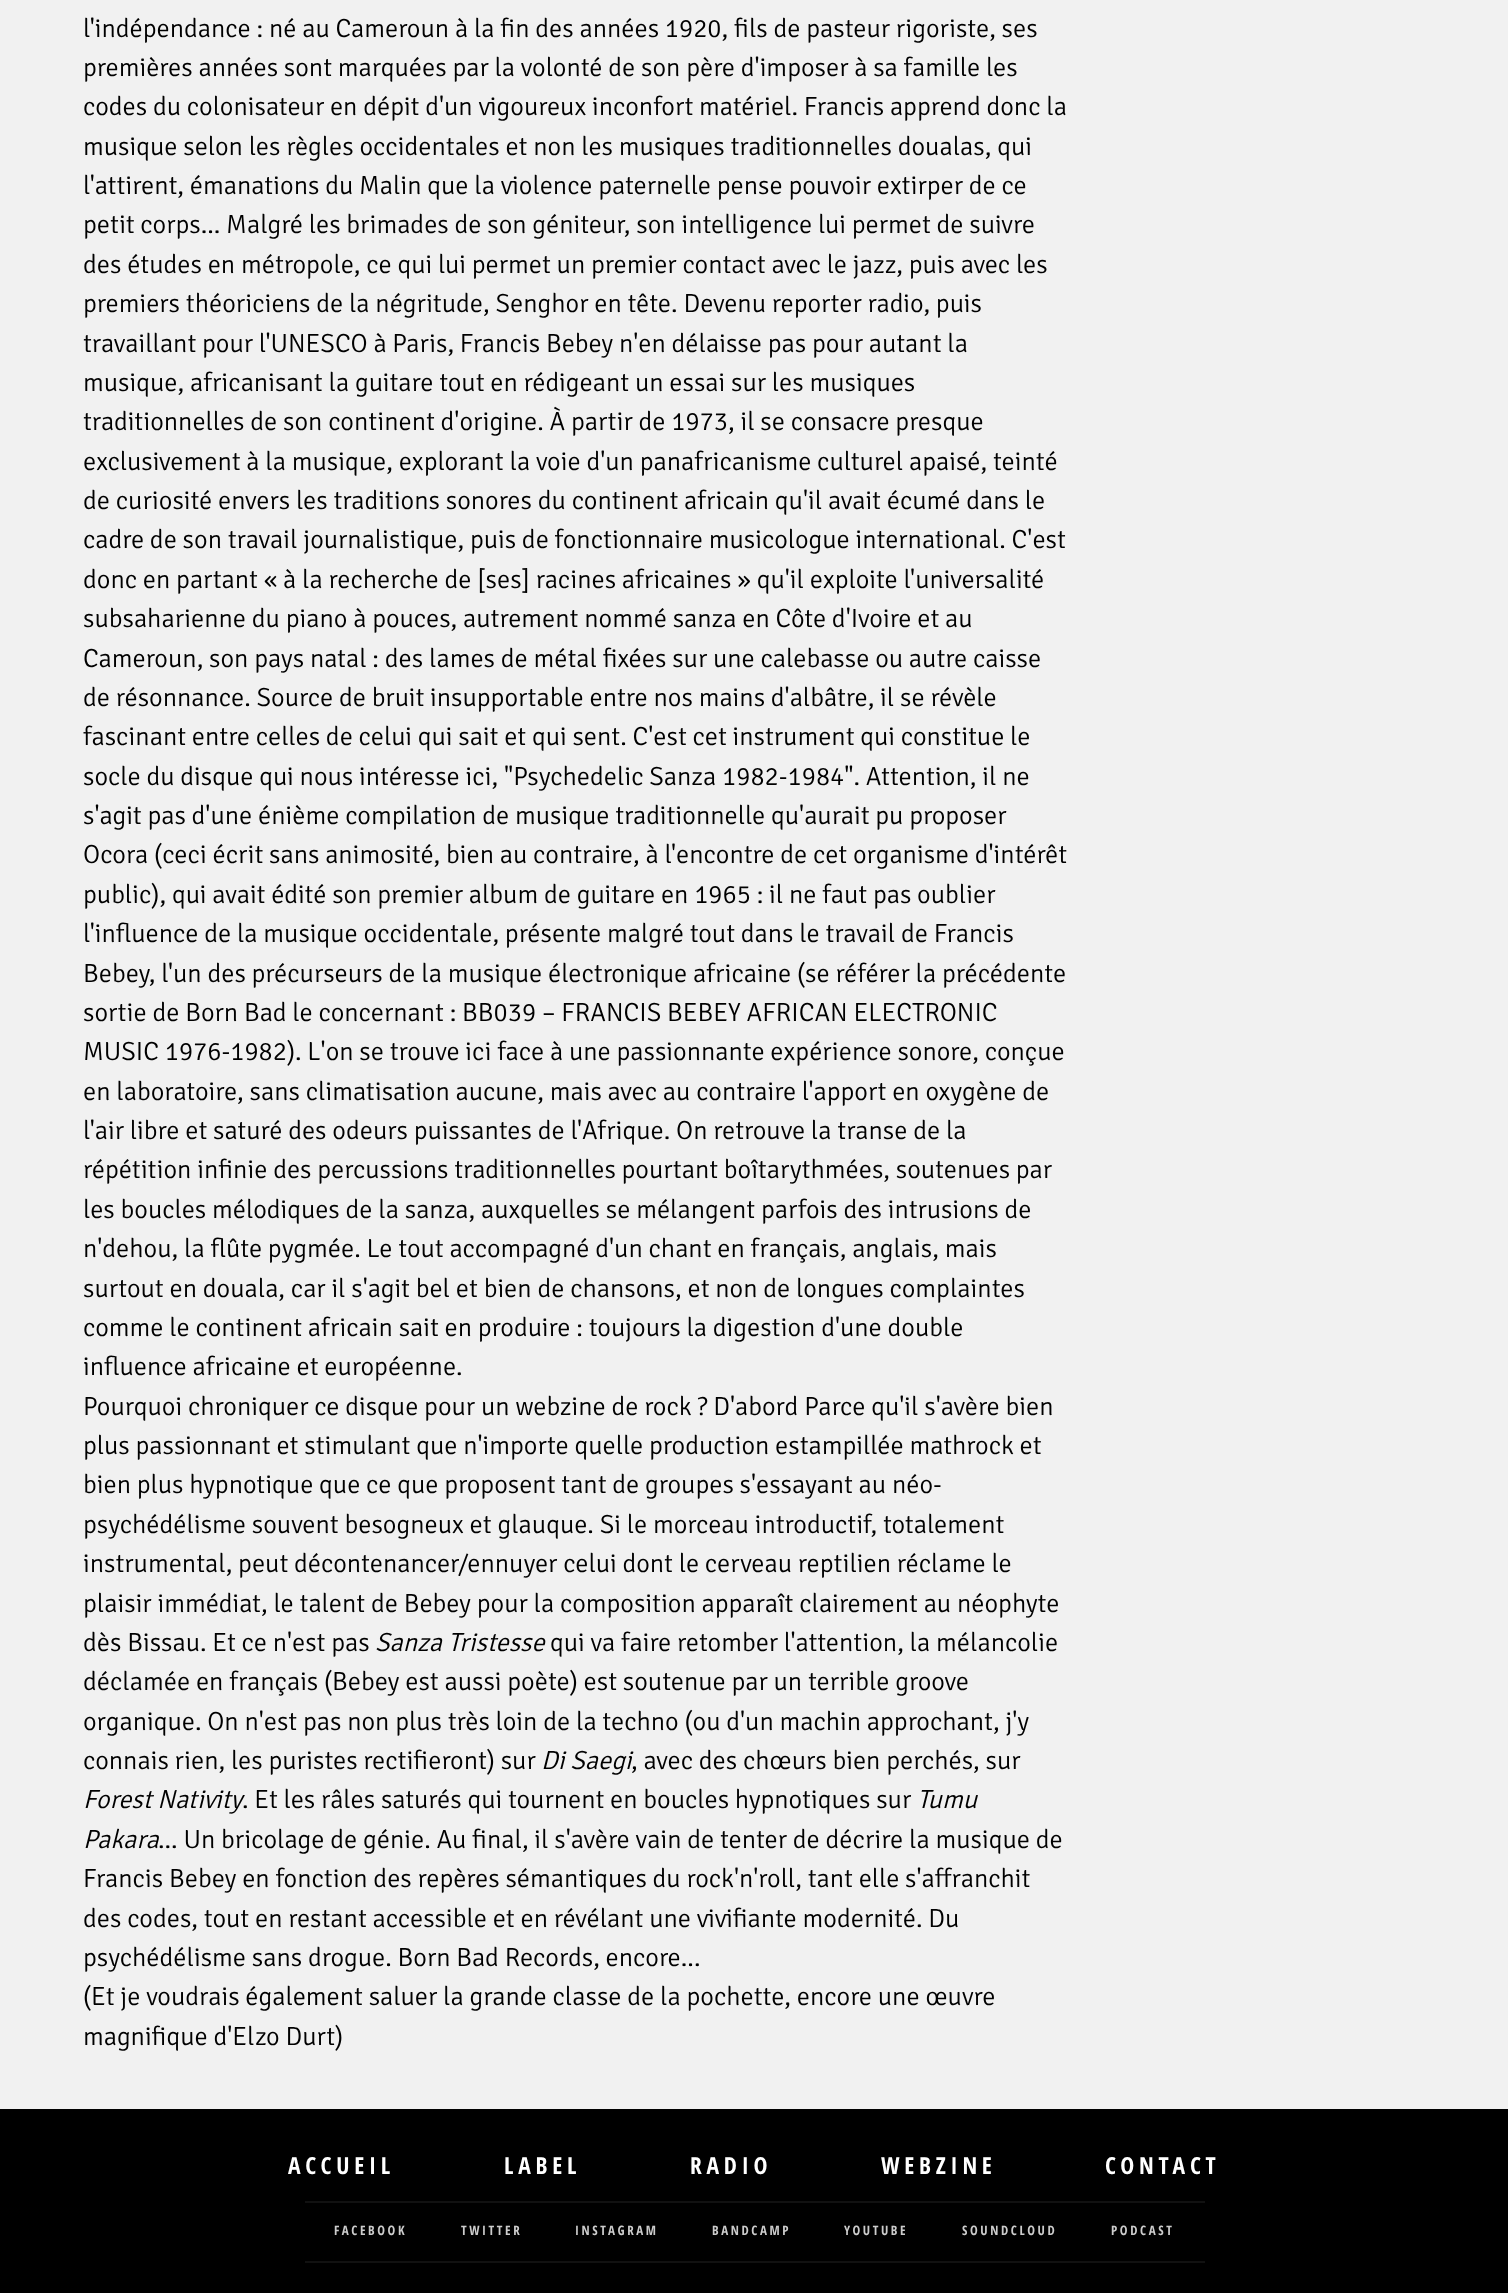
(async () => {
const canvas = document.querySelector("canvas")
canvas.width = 1508
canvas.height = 2293
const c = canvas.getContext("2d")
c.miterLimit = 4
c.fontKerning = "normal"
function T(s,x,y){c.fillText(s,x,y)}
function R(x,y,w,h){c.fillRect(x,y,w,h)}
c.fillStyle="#f1f1f1"
R(0,0,1508,2293)
c.font="300 26.25px Signika"
c.fillStyle="#000"
T("l'indépendance : né au Cameroun à la fin des années 1920, fils de pasteur rigoriste, ses",83,37)
T("premières années sont marquées par la volonté de son père d'imposer à sa famille les",83,76)
T("codes du colonisateur en dépit d'un vigoureux inconfort matériel. Francis apprend donc la",83,115)
T("musique selon les règles occidentales et non les musiques traditionnelles doualas, qui",83,155)
T("l'attirent, émanations du Malin que la violence paternelle pense pouvoir extirper de ce",83,194)
T("petit corps... Malgré les brimades de son géniteur, son intelligence lui permet de suivre",83,233)
T("des études en métropole, ce qui lui permet un premier contact avec le jazz, puis avec les",83,273)
T("premiers théoriciens de la négritude, Senghor en tête. Devenu reporter radio, puis",83,312)
T("travaillant pour l'UNESCO à Paris, Francis Bebey n'en délaisse pas pour autant la",83,352)
T("musique, africanisant la guitare tout en rédigeant un essai sur les musiques",83,391)
T("traditionnelles de son continent d'origine. À partir de 1973, il se consacre presque",83,430)
T("exclusivement à la musique, explorant la voie d'un panafricanisme culturel apaisé, teinté",83,470)
T("de curiosité envers les traditions sonores du continent africain qu'il avait écumé dans le",83,509)
T("cadre de son travail journalistique, puis de fonctionnaire musicologue international. C'est",83,548)
T("donc en partant « à la recherche de [ses] racines africaines » qu'il exploite l'universalité",83,588)
T("subsaharienne du piano à pouces, autrement nommé sanza en Côte d'Ivoire et au",83,627)
T("Cameroun, son pays natal : des lames de métal fixées sur une calebasse ou autre caisse",83,667)
T("de résonnance. Source de bruit insupportable entre nos mains d'albâtre, il se révèle",83,706)
T("fascinant entre celles de celui qui sait et qui sent. C'est cet instrument qui constitue le",83,745)
T("socle du disque qui nous intéresse ici, \"Psychedelic Sanza 1982-1984\". Attention, il ne",83,785)
T("s'agit pas d'une énième compilation de musique traditionnelle qu'aurait pu proposer",83,824)
T("Ocora (ceci écrit sans animosité, bien au contraire, à l'encontre de cet organisme d'intérêt",83,863)
T("public), qui avait édité son premier album de guitare en 1965 : il ne faut pas oublier",83,903)
T("l'influence de la musique occidentale, présente malgré tout dans le travail de Francis",83,942)
T("Bebey, l'un des précurseurs de la musique électronique africaine (se référer la précédente",83,982)
T("sortie de Born Bad le concernant : BB039 – FRANCIS BEBEY AFRICAN ELECTRONIC",83,1021)
T("MUSIC 1976-1982). L'on se trouve ici face à une passionnante expérience sonore, conçue",83,1060)
T("en laboratoire, sans climatisation aucune, mais avec au contraire l'apport en oxygène de",83,1100)
T("l'air libre et saturé des odeurs puissantes de l'Afrique. On retrouve la transe de la",83,1139)
T("répétition infinie des percussions traditionnelles pourtant boîtarythmées, soutenues par",83,1178)
T("les boucles mélodiques de la sanza, auxquelles se mélangent parfois des intrusions de",83,1218)
T("n'dehou, la flûte pygmée. Le tout accompagné d'un chant en français, anglais, mais",83,1257)
T("surtout en douala, car il s'agit bel et bien de chansons, et non de longues complaintes",83,1297)
T("comme le continent africain sait en produire : toujours la digestion d'une double",83,1336)
T("influence africaine et européenne.",83,1375)
T("Pourquoi chroniquer ce disque pour un webzine de rock ? D'abord Parce qu'il s'avère bien",83,1415)
T("plus passionnant et stimulant que n'importe quelle production estampillée mathrock et",83,1454)
T("bien plus hypnotique que ce que proposent tant de groupes s'essayant au néo-",83,1493)
T("psychédélisme souvent besogneux et glauque. Si le morceau introductif, totalement",83,1533)
T("instrumental, peut décontenancer/ennuyer celui dont le cerveau reptilien réclame le",83,1572)
T("plaisir immédiat, le talent de Bebey pour la composition apparaît clairement au néophyte",83,1612)
T("dès Bissau. Et ce n'est pas",83,1651)
c.font="italic 300 26.25px Signika"
T("Sanza Tristesse",375,1651)
c.font="300 26.25px Signika"
T("qui va faire retomber l'attention, la mélancolie",550,1651)
T("déclamée en français (Bebey est aussi poète) est soutenue par un terrible groove",83,1690)
T("organique. On n'est pas non plus très loin de la techno (ou d'un machin approchant, j'y",83,1730)
T("connais rien, les puristes rectifieront) sur",83,1769)
c.font="italic 300 26.25px Signika"
T("Di Saegi",541,1769)
c.font="300 26.25px Signika"
T(", avec des chœurs bien perchés, sur",631,1769)
c.font="italic 300 26.25px Signika"
T("Forest Nativity",83,1808)
c.font="300 26.25px Signika"
T(". Et les râles saturés qui tournent en boucles hypnotiques sur",242,1808)
c.font="italic 300 26.25px Signika"
T("Tumu",917,1808)
T("Pakara",83,1848)
c.font="300 26.25px Signika"
T("... Un bricolage de génie. Au final, il s'avère vain de tenter de décrire la musique de",158,1848)
T("Francis Bebey en fonction des repères sémantiques du rock'n'roll, tant elle s'affranchit",83,1887)
T("des codes, tout en restant accessible et en révélant une vivifiante modernité. Du",83,1927)
T("psychédélisme sans drogue. Born Bad Records, encore...",83,1966)
T("(Et je voudrais également saluer la grande classe de la pochette, encore une œuvre",83,2005)
T("magnifique d'Elzo Durt)",83,2045)
R(0,2109,1508,184)
c.letterSpacing="4.75px"
c.font="bold 23.5px Open Sans Condensed"
c.fillStyle="#fff"
T("ACCUEIL",288,2174)
T("LABEL",504,2174)
T("RADIO",690,2174)
T("WEBZINE",881,2174)
T("CONTACT",1105,2174)
c.fillStyle="#111"
R(305,2201,900,2)
R(305,2261,900,2)
c.letterSpacing="2.6px"
c.font="bold 13px Open Sans Condensed"
c.fillStyle="#ccc"
T("FACEBOOK",334,2235)
T("TWITTER",461,2235)
T("INSTAGRAM",575,2235)
T("BANDCAMP",712,2235)
T("YOUTUBE",844,2235)
T("SOUNDCLOUD",962,2235)
T("PODCAST",1111,2235)
})()
